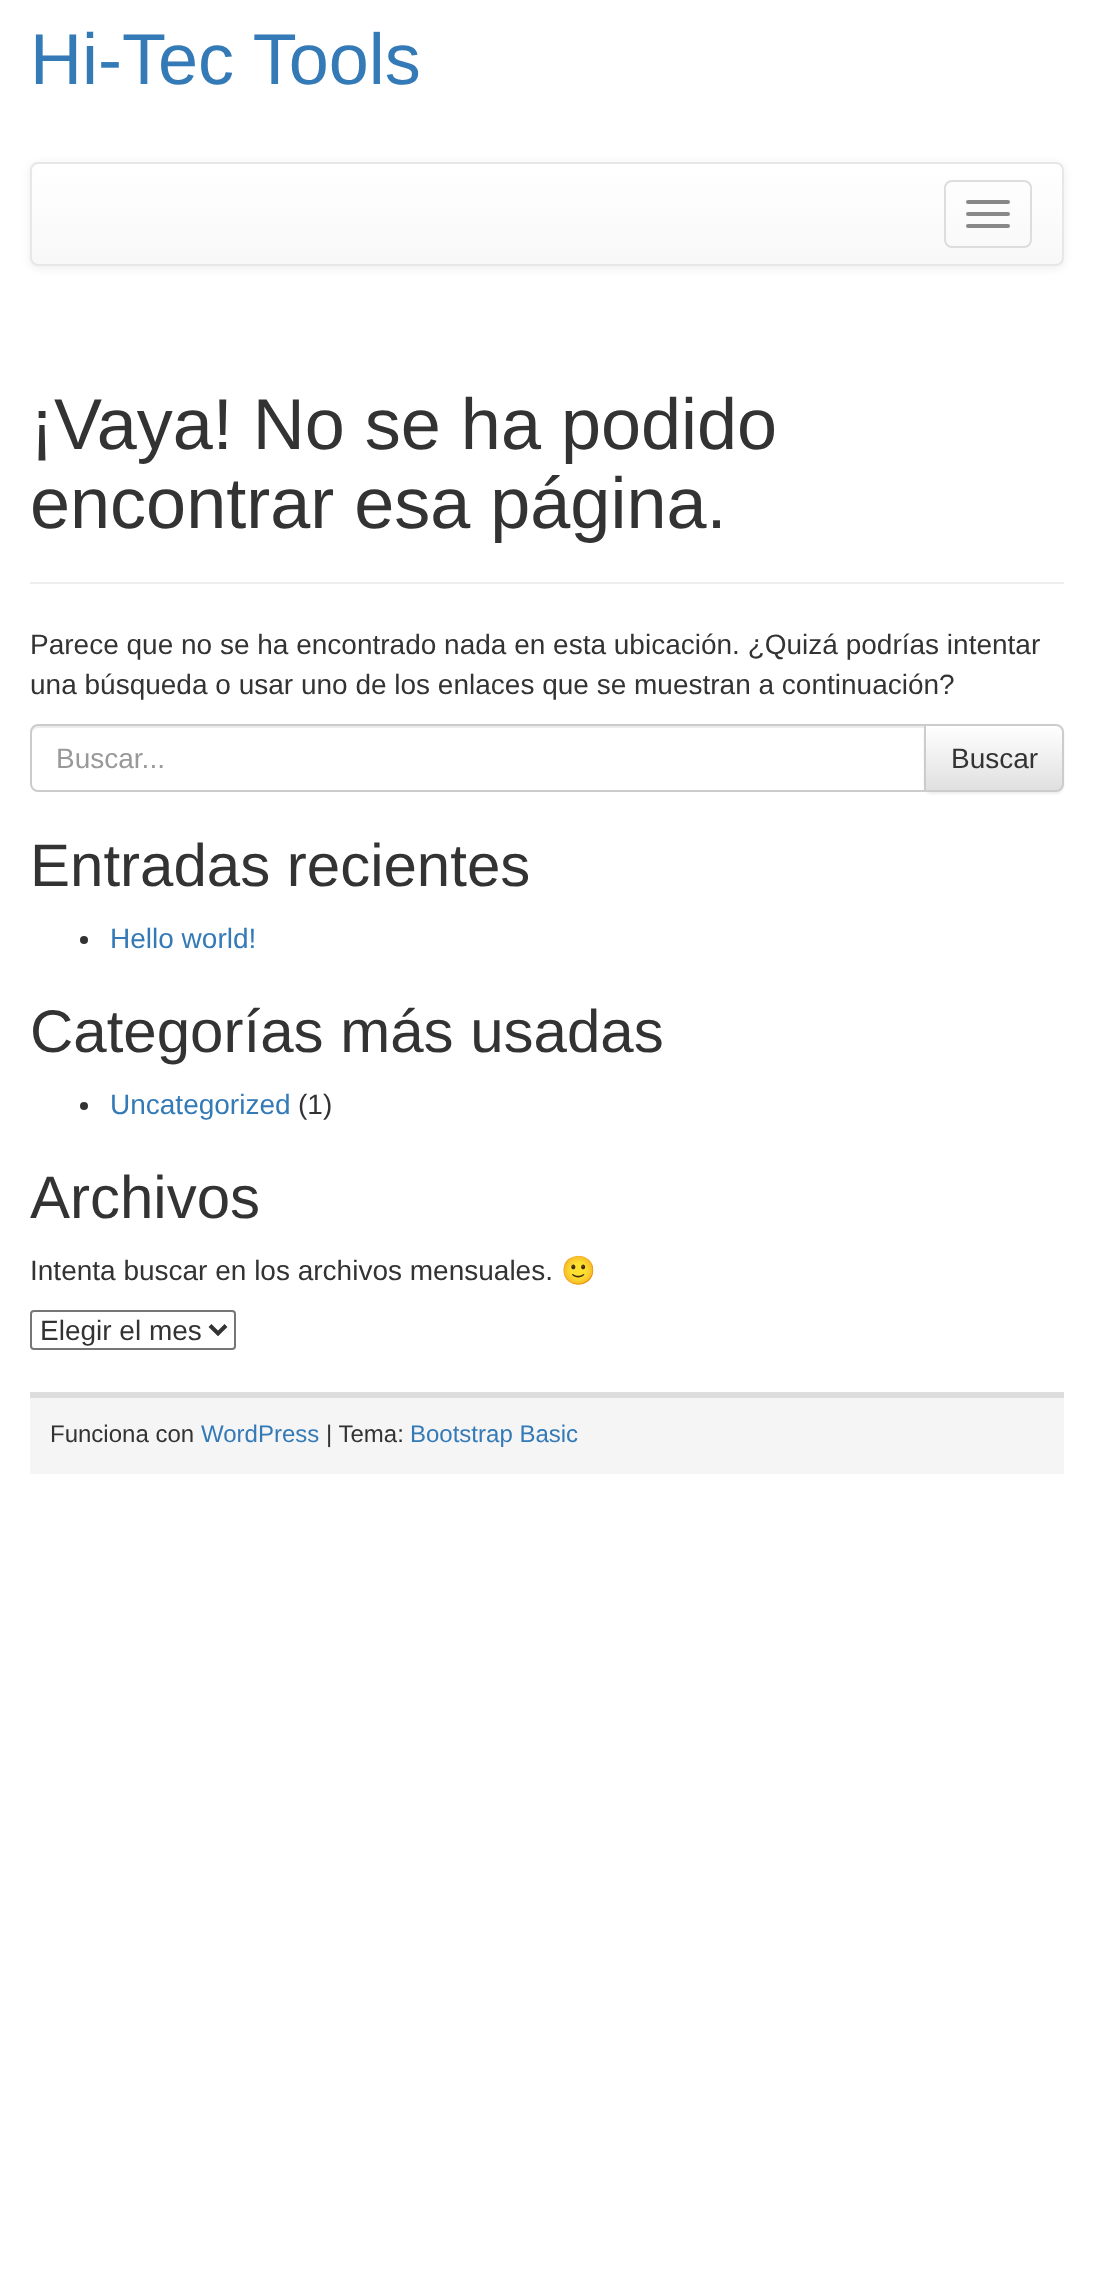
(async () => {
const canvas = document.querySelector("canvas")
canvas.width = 1093
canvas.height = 2282
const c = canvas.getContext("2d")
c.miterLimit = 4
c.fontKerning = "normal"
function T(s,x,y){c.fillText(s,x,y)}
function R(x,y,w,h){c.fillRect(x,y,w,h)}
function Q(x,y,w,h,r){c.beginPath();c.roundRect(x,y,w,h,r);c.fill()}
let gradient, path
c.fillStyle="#fff"
R(0,0,1093,2282)
c.font="72px Liberation Sans"
c.fillStyle="#337ab7"
T("Hi-Tec Tools",30,84)
c.fillStyle="#00000012"
c.filter="blur(5px)"
c.beginPath()
c.roundRect(30,164,1034,104,8)
c.fill()
c.filter="none"
c.save()
c.beginPath()
c.roundRect(30,162,1034,104,8)
c.clip()
gradient = c.createLinearGradient(547,164,547,264)
gradient.addColorStop(0,"#fff")
gradient.addColorStop(1,"#f8f8f8")
c.fillStyle = gradient
R(30,164,1034,100)
c.restore()
c.beginPath()
c.roundRect(31,163,1032,102,7)
c.strokeStyle="#e7e7e7"
c.lineWidth=2
c.stroke()
c.beginPath()
c.roundRect(945,181,86,66,7)
c.strokeStyle="#ddd"
c.stroke()
c.fillStyle="#888"
Q(966,200,44,4,2)
Q(966,212,44,4,2)
Q(966,224,44,4,2)
c.fillStyle="#eee"
R(30,582,1034,2)
c.fillStyle="#333"
T("¡Vaya! No se ha podido",30,449)
T("encontrar esa página.",30,528)
c.font="28px Liberation Sans"
T("Parece que no se ha encontrado nada en esta ubicación. ¿Quizá podrías intentar",30,654)
T("una búsqueda o usar uno de los enlaces que se muestran a continuación?",30,694)
c.fillStyle="#ececec"
path = new Path2D("M38 728h886v-2h-886c-5 0-6 4-6 8c0-3 3-6 6-6z")
c.fill(path)
c.beginPath()
c.roundRect(31,725,894,66,[7,0,0,7])
c.strokeStyle="#ccc"
c.stroke()
c.fillStyle="#999"
T("Buscar...",56,768)
c.fillStyle="#00000012"
c.filter="blur(1px)"
c.beginPath()
c.roundRect(924,726,140,68,8)
c.fill()
c.filter="none"
c.save()
c.beginPath()
c.roundRect(924,724,140,68,[0,8,8,0])
c.clip()
gradient = c.createLinearGradient(994,726,994,790)
gradient.addColorStop(0,"#fff")
gradient.addColorStop(1,"#e0e0e0")
c.fillStyle = gradient
R(926,726,138,64)
c.restore()
c.beginPath()
c.roundRect(925,725,138,66,[0,7,7,0])
c.stroke()
c.fillStyle="#333"
T("Buscar",951,768)
c.font="60px Liberation Sans"
T("Entradas recientes",30,886)
c.beginPath()
c.arc(84,940,4,0,7)
c.fill()
c.font="28px Liberation Sans"
c.fillStyle="#337ab7"
T("Hello world!",110,948)
c.font="60px Liberation Sans"
c.fillStyle="#333"
T("Categorías más usadas",30,1052)
c.beginPath()
c.arc(84,1106,4,0,7)
c.fill()
c.font="28px Liberation Sans"
c.fillStyle="#337ab7"
T("Uncategorized",110,1114)
c.fillStyle="#333"
T("(1)",298,1114)
c.font="60px Liberation Sans"
T("Archivos",30,1218)
c.font="28px Liberation Sans"
T("Intenta buscar en los archivos mensuales.",30,1280)
c.font="28px Noto Color Emoji"
T("🙂",561,1280)
c.beginPath()
c.roundRect(31,1311,204,38,3)
c.strokeStyle="#767676"
c.stroke()
path = new Path2D("M210 1325.5l8 8l8-8")
c.strokeStyle="#333"
c.lineWidth=4
c.stroke(path)
c.font="28px Liberation Sans"
T("Elegir el mes",40,1340)
c.fillStyle="#f5f5f5"
R(30,1398,1034,76)
c.fillStyle="#ddd"
R(30,1392,1034,6)
c.font="24px Liberation Sans"
c.fillStyle="#333"
T("Funciona con",50,1442)
c.fillStyle="#337ab7"
T("WordPress",201,1442)
c.fillStyle="#333"
T("| Tema:",326,1442)
c.fillStyle="#337ab7"
T("Bootstrap Basic",410,1442)
})()
